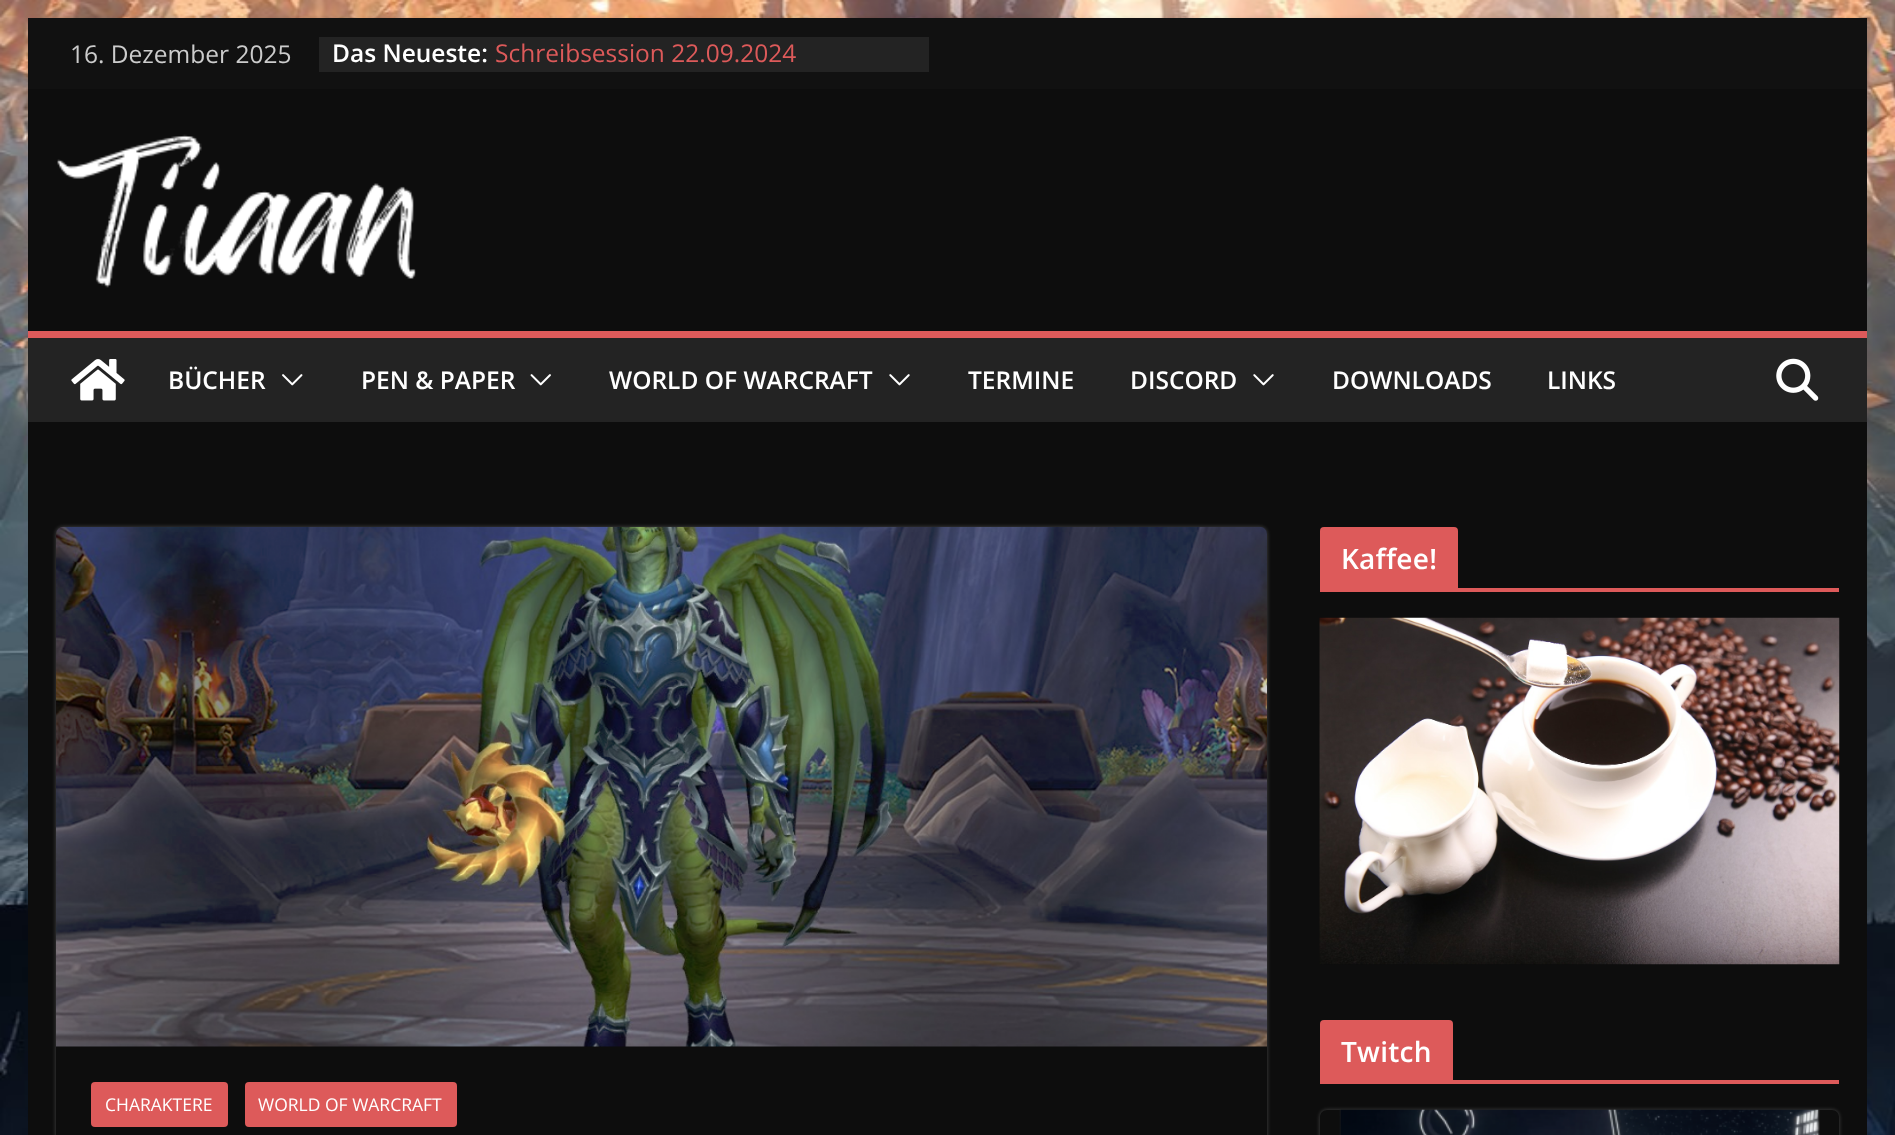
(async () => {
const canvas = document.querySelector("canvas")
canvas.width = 1895
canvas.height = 1135
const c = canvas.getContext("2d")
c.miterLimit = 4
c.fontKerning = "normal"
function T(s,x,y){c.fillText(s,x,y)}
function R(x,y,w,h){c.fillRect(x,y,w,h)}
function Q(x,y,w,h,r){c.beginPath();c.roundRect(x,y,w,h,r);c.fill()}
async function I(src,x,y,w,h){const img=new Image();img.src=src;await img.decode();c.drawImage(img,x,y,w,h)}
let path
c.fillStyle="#fff"
R(0,0,1895,1135)
await I("1.png",0,0,1895,1135)
c.fillStyle="#0d0d0d"
R(28,422,1839,713)
c.fillStyle="#0000001a"
c.filter="blur(2px)"
c.beginPath()
c.rect(28,18,1839,71)
c.fill()
c.filter="none"
c.fillStyle="#111"
R(28,18,1839,71)
c.font="24.5px Open Sans"
c.fillStyle="#ccc"
T("16. Dezember 2025",70,63)
c.fillStyle="#232323"
R(319,37,610,35)
c.font="600 24.5px Open Sans"
c.fillStyle="#fff"
T("Das Neueste:",332,62)
c.font="24.5px Open Sans"
c.fillStyle="#dd5a5a"
T("Schreibsession 22.09.2024",495,62)
c.fillStyle="#0d0d0d"
R(28,89,1839,242)
await I("2.png",57,134,359,154)
c.fillStyle="#232323"
R(28,338,1839,84)
c.fillStyle="#dd5a5a"
R(28,331,1839,7)
await I("3.png",71,359,54,42)
c.font="600 24.5px Open Sans"
c.fillStyle="#fff"
T("BÜCHER",168,389)
await I("4.png",282,374,21,12)
T("PEN & PAPER",361,389)
await I("5.png",530,374,21,12)
T("WORLD OF WARCRAFT",609,389)
await I("6.png",889,374,21,12)
T("TERMINE",968,389)
T("DISCORD",1130,389)
await I("6.png",1253,374,21,12)
T("DOWNLOADS",1332,389)
T("LINKS",1547,389)
await I("7.png",1776,358,43,43)
c.fillStyle="#dd5a5a"
R(1320,588,519,4)
c.beginPath()
c.roundRect(1320,527,138,61,[4,4,0,0])
c.fill()
c.letterSpacing="0.25px"
c.font="600 28px Open Sans"
c.fillStyle="#fff"
T("Kaffee!",1341,569)
await I("8.png",1319,617,521,348)
c.fillStyle="#dd5a5a"
R(1320,1080,519,4)
c.beginPath()
c.roundRect(1320,1020,133,60,[4,4,0,0])
c.fill()
c.fillStyle="#fff"
T("Twitch",1341,1062)
c.save()
path = new Path2D("M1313 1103h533v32h-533zm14 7h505c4 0 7 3 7 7v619c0 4-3 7-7 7h-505c-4 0-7-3-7-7v-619c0-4 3-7 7-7z")
c.clip(path,"evenodd")
c.fillStyle="#ffffff3d"
c.filter="blur(2px)"
c.beginPath()
c.roundRect(1320,1110,519,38,7)
c.fill()
c.filter="none"
c.restore()
await I("9.png",1339,1109,481,26)
c.save()
path = new Path2D("M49 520h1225v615h-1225zm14 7h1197c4 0 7 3 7 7v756c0 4-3 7-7 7h-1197c-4 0-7-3-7-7v-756c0-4 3-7 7-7z")
c.clip(path,"evenodd")
c.fillStyle="#ffffff3d"
c.filter="blur(2px)"
c.beginPath()
c.roundRect(56,527,1211,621,7)
c.fill()
c.filter="none"
c.restore()
await I("10.png",56,526,1211,521)
c.fillStyle="#dd5a5a"
Q(91,1082,137,45,4)
c.letterSpacing="0px"
c.font="17.5px Open Sans"
c.fillStyle="#fff"
T("CHARAKTERE",105,1111)
c.fillStyle="#dd5a5a"
Q(245,1082,212,45,4)
c.fillStyle="#fff"
T("WORLD OF WARCRAFT",258,1111)
})()
